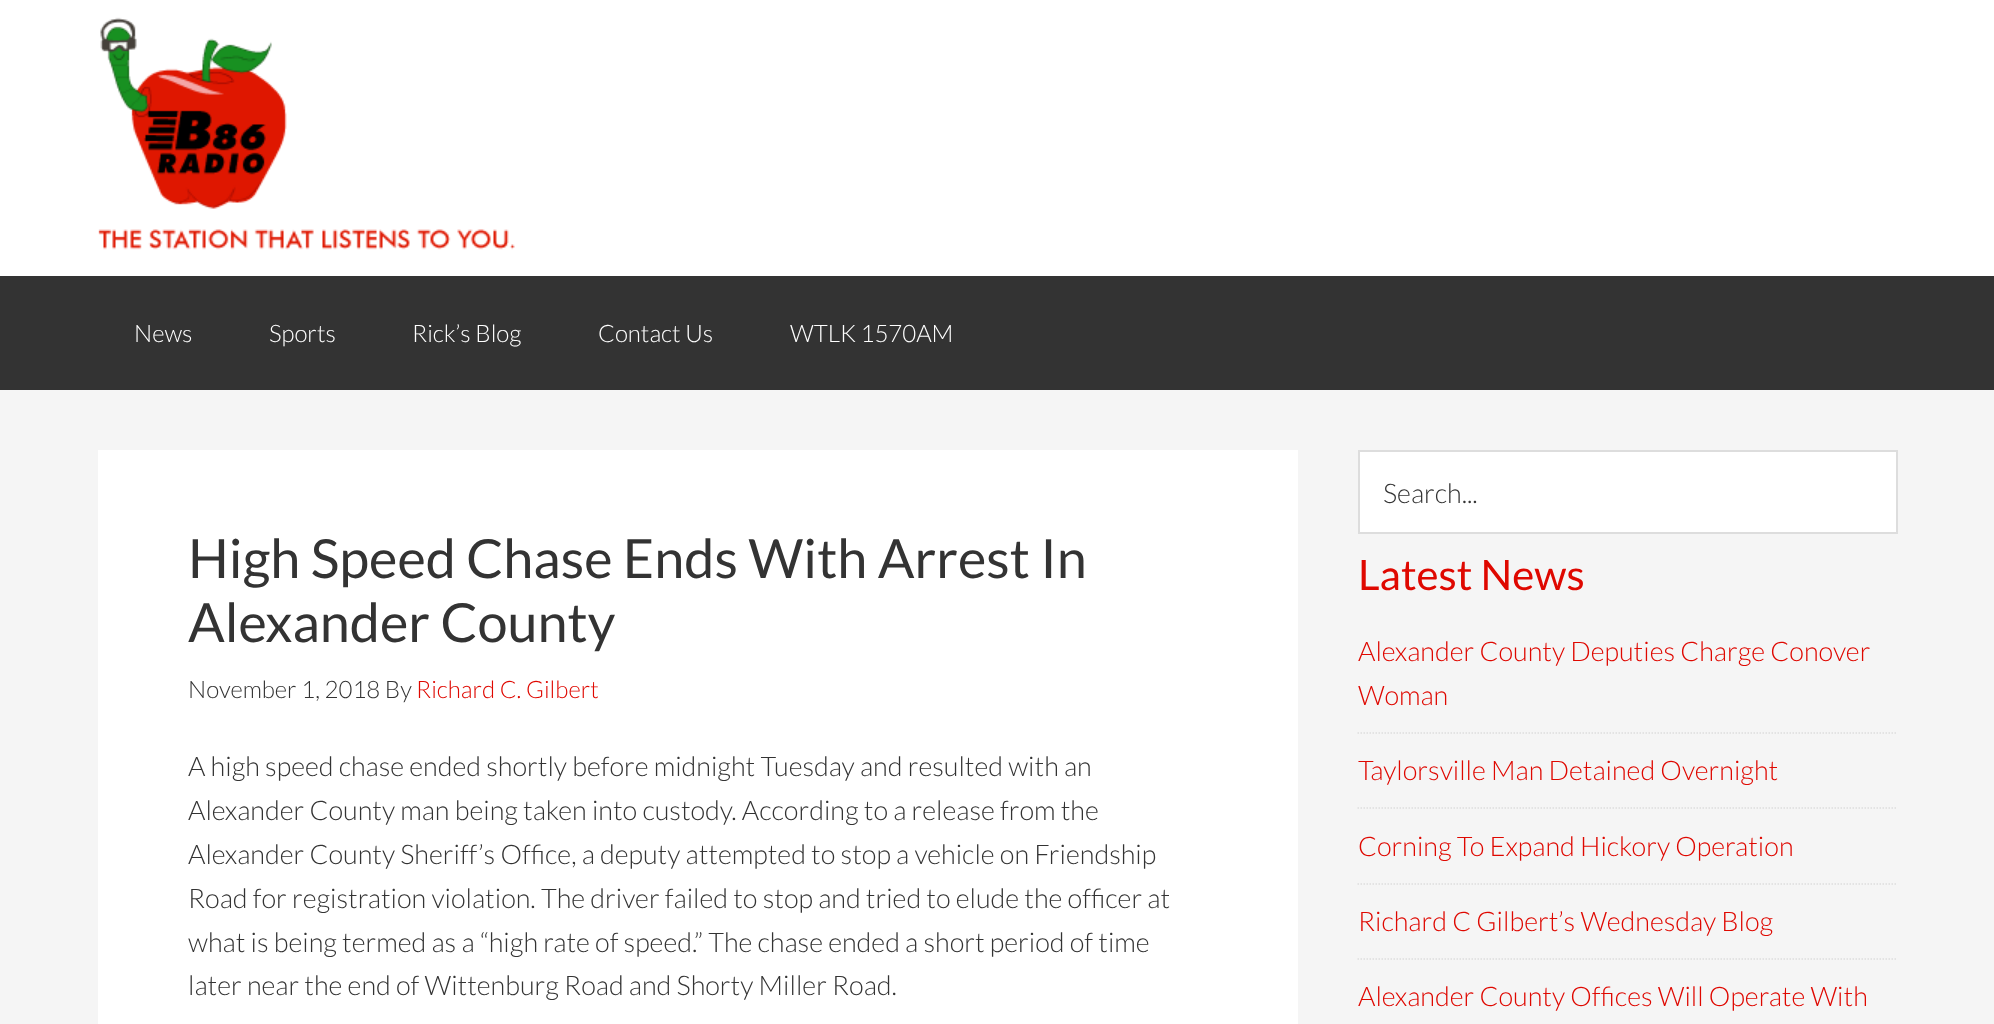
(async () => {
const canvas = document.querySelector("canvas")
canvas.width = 1994
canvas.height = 1024
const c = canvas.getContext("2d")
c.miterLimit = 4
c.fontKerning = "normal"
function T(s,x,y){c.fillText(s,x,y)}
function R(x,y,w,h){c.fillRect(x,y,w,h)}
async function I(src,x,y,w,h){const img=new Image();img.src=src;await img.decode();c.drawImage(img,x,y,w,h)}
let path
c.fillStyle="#f5f5f5"
R(0,0,1994,1024)
c.fillStyle="#fff"
R(0,0,1994,276)
await I("1.png",98,17,417,233)
c.fillStyle="#333"
R(0,276,1994,114)
c.font="300 24px Lato"
c.fillStyle="#fff"
T("News",134,342)
T("Sports",269,342)
T("Rick’s Blog",412,342)
T("Contact Us",598,342)
T("WTLK 1570AM",790,342)
R(98,450,1200,574)
c.font="54px Lato"
c.fillStyle="#333"
T("High Speed Chase Ends With Arrest In",188,578)
T("Alexander County",188,642)
c.font="300 24px Lato"
T("November 1, 2018 By",188,698)
c.fillStyle="#df0800"
T("Richard C. Gilbert",416,698)
c.font="300 27px Lato"
c.fillStyle="#333"
T("A high speed chase ended shortly before midnight Tuesday and resulted with an",188,776)
T("Alexander County man being taken into custody. According to a release from the",188,820)
T("Alexander County Sheriff’s Office, a deputy attempted to stop a vehicle on Friendship",188,864)
T("Road for registration violation. The driver failed to stop and tried to elude the officer at",188,908)
T("what is being termed as a “high rate of speed.” The chase ended a short period of time",188,952)
T("later near the end of Wittenburg Road and Shorty Miller Road.",188,995)
c.fillStyle="#fff"
c.beginPath()
c.rect(1359,451,538,82)
c.fill()
c.strokeStyle="#ddd"
c.lineWidth=2
c.stroke()
c.fillStyle="#333"
T("Search...",1383,503)
c.font="42px Lato"
c.fillStyle="#df0800"
T("Latest News",1358,590)
path = new Path2D("M1357.5 733h540")
c.lineWidth=1.5
c.setLineDash([1.5,1.5])
c.stroke(path)
c.font="300 27px Lato"
T("Alexander County Deputies Charge Conover",1358,661)
T("Woman",1358,705)
path = new Path2D("M1357.5 808h540")
c.stroke(path)
T("Taylorsville Man Detained Overnight",1358,780)
path = new Path2D("M1357.5 884h540")
c.stroke(path)
T("Corning To Expand Hickory Operation",1358,856)
path = new Path2D("M1357.5 959h540")
c.stroke(path)
T("Richard C Gilbert’s Wednesday Blog",1358,931)
T("Alexander County Offices Will Operate With",1358,1006)
})()
